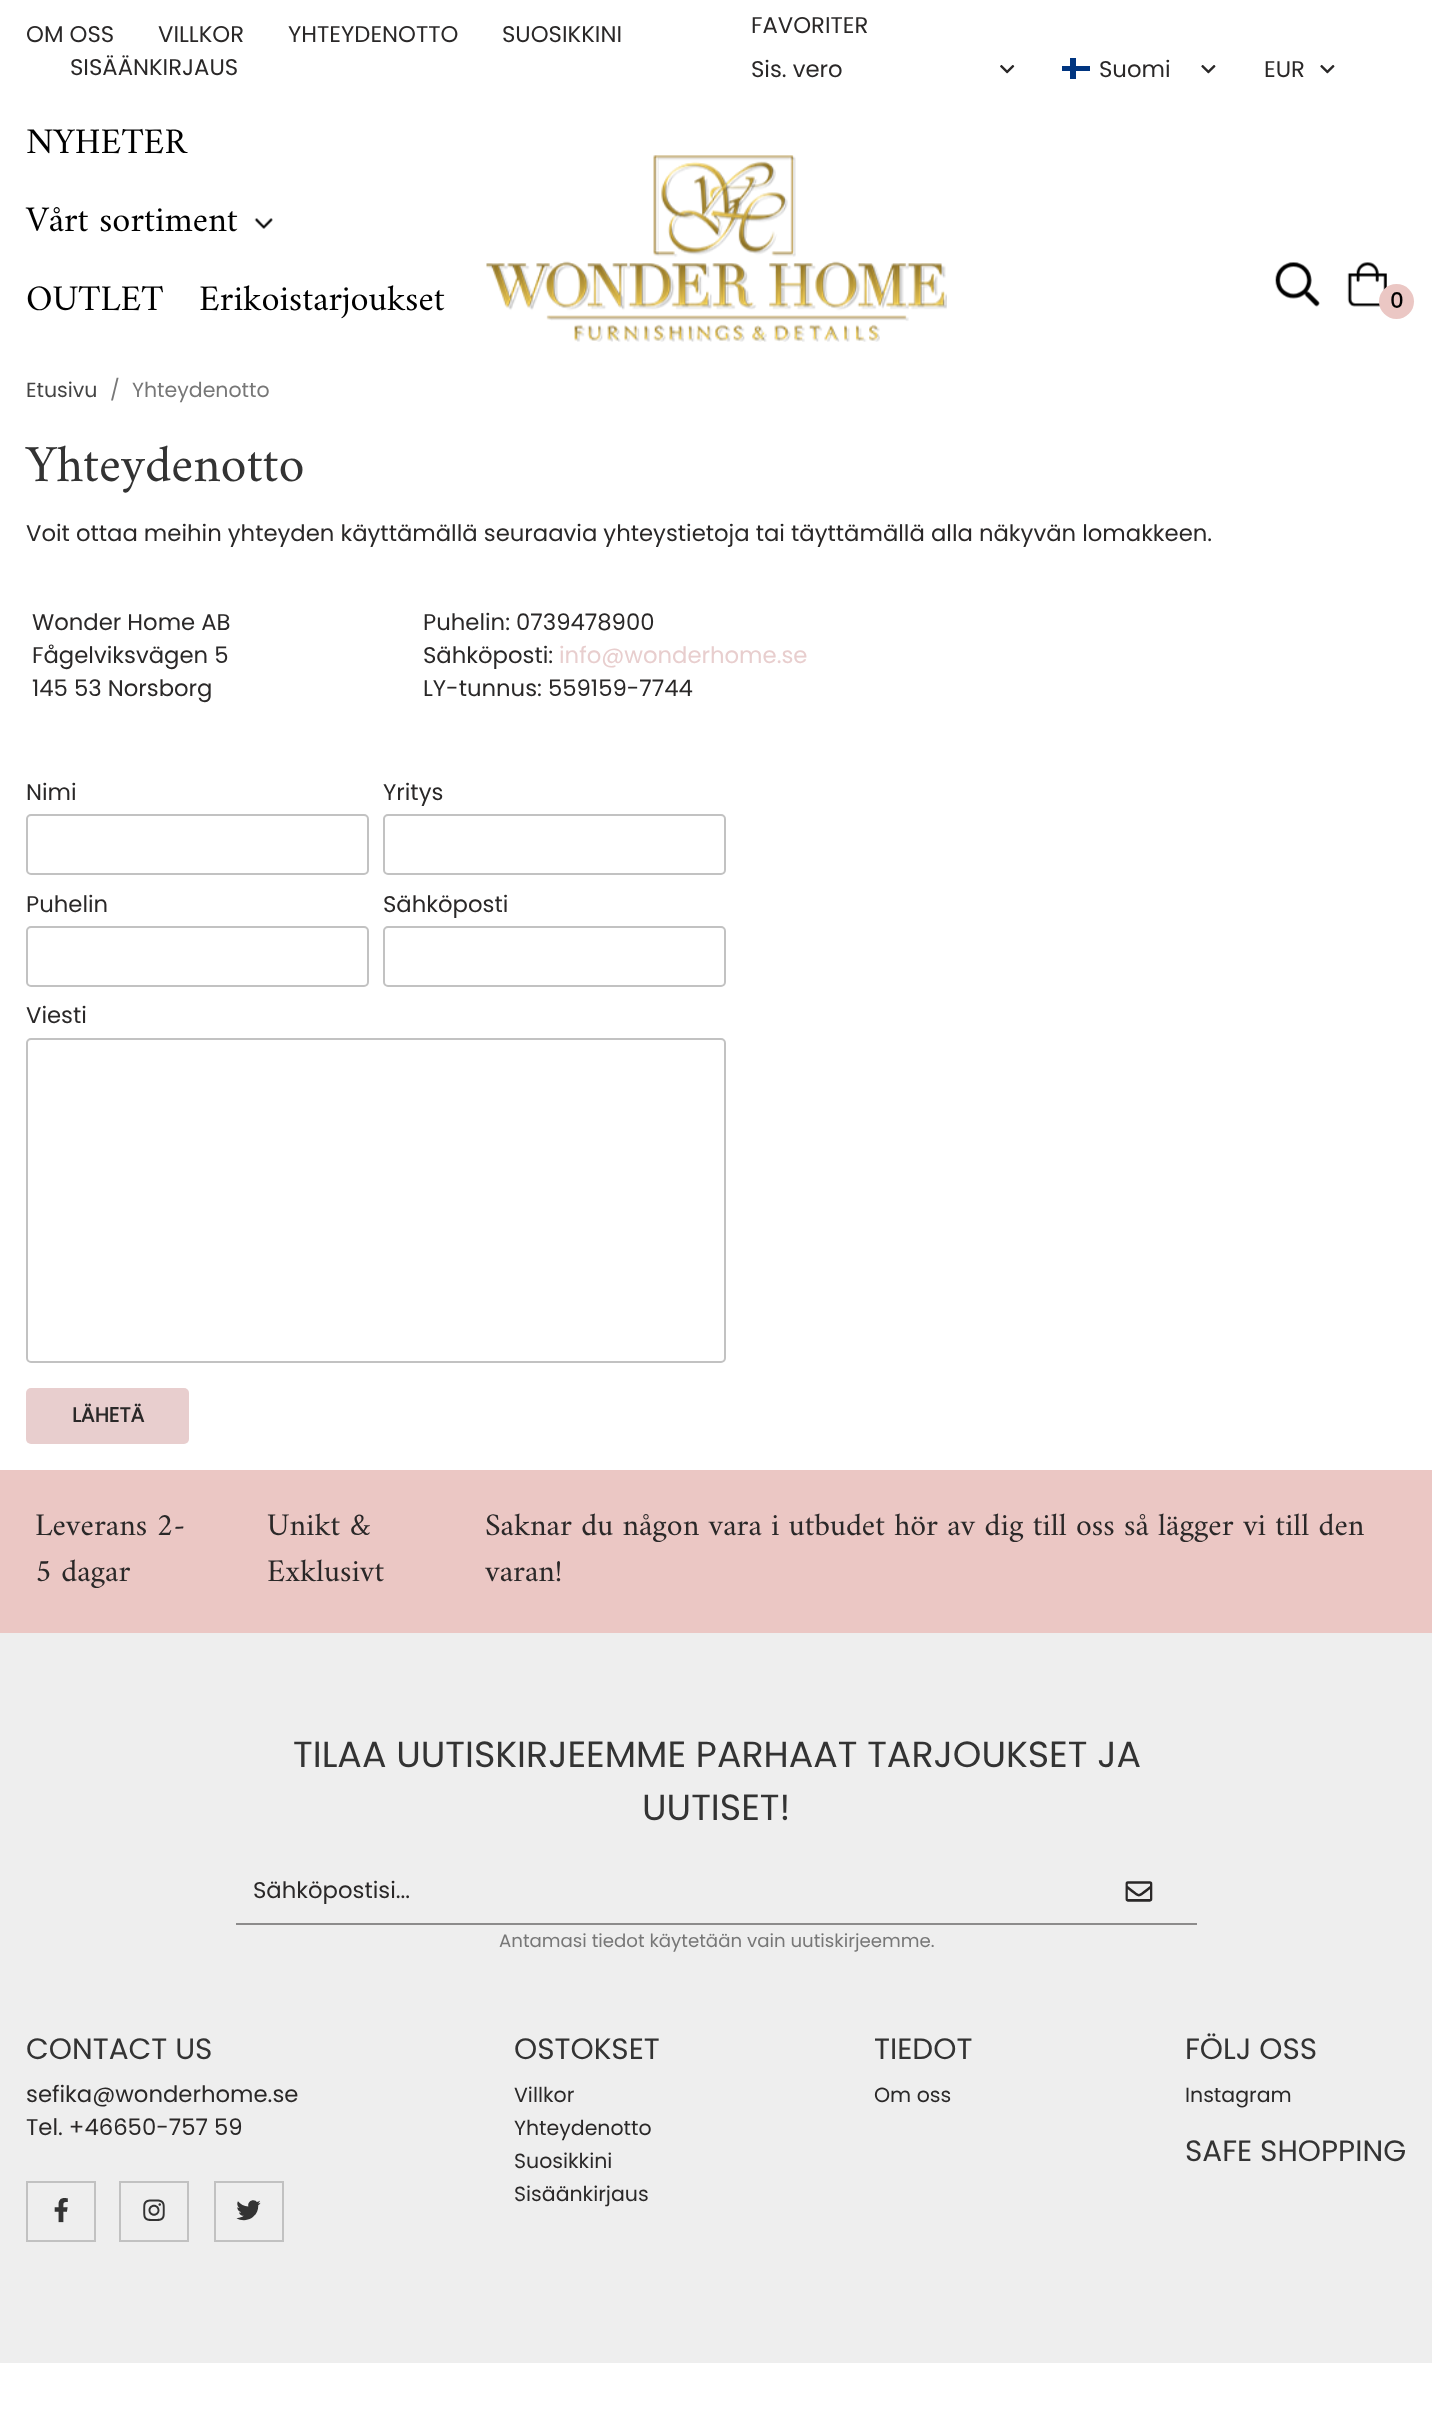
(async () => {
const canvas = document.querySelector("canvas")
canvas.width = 1432
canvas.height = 2415
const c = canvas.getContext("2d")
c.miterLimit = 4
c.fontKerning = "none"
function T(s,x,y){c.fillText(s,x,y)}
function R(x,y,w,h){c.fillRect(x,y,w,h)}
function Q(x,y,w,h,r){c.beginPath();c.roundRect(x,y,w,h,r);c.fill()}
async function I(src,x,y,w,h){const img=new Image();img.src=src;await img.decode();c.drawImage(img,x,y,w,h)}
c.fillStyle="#fff"
R(0,0,1432,2415)
c.font="22.75px Poppins"
c.fillStyle="#2a2828"
T("OM OSS",26,42)
T("VILLKOR",158,42)
T("YHTEYDENOTTO",288,42)
T("SUOSIKKINI",502,42)
T("SISÄÄNKIRJAUS",70,75)
T("FAVORITER",751,33)
T("Sis. vero",751,77)
await I("1.png",1000,65,15,9)
c.fillStyle="#003580"
R(1062,66,28,5)
R(1070,58,6,21)
c.fillStyle="#2a2828"
T("Suomi",1099,77)
await I("2.png",1201,65,15,9)
T("EUR",1264,77)
await I("2.png",1320,65,15,9)
c.font="36.4px Amiri"
c.fillStyle="#000"
T("NYHETER",26,153)
T("Vårt sortiment",26,231)
await I("3.png",254,218,19,11)
T("OUTLET",26,310)
T("Erikoistarjoukset",199,310)
await I("4.png",486,155,461,187)
await I("5.png",1275,262,45,45)
await I("6.png",1347,262,40,45)
c.fillStyle="#ebc7c4"
c.beginPath()
c.arc(1396.5,301.5,17.5,0,7)
c.fill()
c.font="bold 21px Poppins"
c.fillStyle="#000"
T("0",1390,308)
c.font="20.5px Poppins"
c.fillStyle="#444"
T("Etusivu",26,397)
c.fillStyle="#777"
T("/",110,397)
T("Yhteydenotto",132,397)
c.font="52.5px Amiri"
c.fillStyle="#333"
T("Yhteydenotto",26,481)
c.font="22.75px Poppins"
c.fillStyle="#2a2828"
T("Voit ottaa meihin yhteyden käyttämällä seuraavia yhteystietoja tai täyttämällä alla näkyvän lomakkeen.",26,541)
T("Wonder Home AB",32,630)
T("Fågelviksvägen 5",32,663)
T("145 53 Norsborg",32,696)
T("Puhelin: 0739478900",423,630)
T("Sähköposti:",423,663)
c.fillStyle="#e8cece"
T("info@wonderhome.se",559,663)
c.fillStyle="#2a2828"
T("LY-tunnus: 559159-7744",423,696)
T("Nimi",26,800)
c.beginPath()
c.roundRect(27,815,341,59,4)
c.strokeStyle="#c2c2c2"
c.lineWidth=2
c.stroke()
T("Yritys",383,800)
c.beginPath()
c.roundRect(384,815,341,59,4)
c.stroke()
T("Puhelin",26,912)
c.beginPath()
c.roundRect(27,927,341,59,4)
c.stroke()
T("Sähköposti",383,912)
c.beginPath()
c.roundRect(384,927,341,59,4)
c.stroke()
T("Viesti",26,1023)
c.beginPath()
c.roundRect(27,1039,698,323,4)
c.stroke()
c.fillStyle="#e8cece"
Q(26,1388,163,56,5)
c.font="bold 20.5px Poppins"
c.fillStyle="#2a2828"
T("LÄHETÄ",72,1422)
c.fillStyle="#ebc7c4"
R(0,1470,1432,163)
c.font="31.85px Amiri"
c.fillStyle="#2a2828"
T("Leverans 2-",35,1535)
T("5 dagar",35,1581)
T("Unikt &",267,1535)
T("Exklusivt",267,1581)
T("Saknar du någon vara i utbudet hör av dig till oss så lägger vi till den",485,1535)
T("varan!",485,1581)
c.fillStyle="#eee"
R(0,1633,1432,730)
c.font="36.4px Poppins"
c.fillStyle="#333"
T("TILAA UUTISKIRJEEMME PARHAAT TARJOUKSET JA",293,1767)
T("UUTISET!",642,1820)
c.fillStyle="#8c8b8b"
R(236,1923,961,2)
c.font="22.75px Poppins"
c.fillStyle="#2a2828"
T("Sähköpostisi...",253,1898)
await I("7.png",1125,1881,28,21)
c.font="18.2px Poppins"
c.fillStyle="#777"
T("Antamasi tiedot käytetään vain uutiskirjeemme.",499,1947)
c.font="29.5px Poppins"
c.fillStyle="#333"
T("CONTACT US",26,2059)
c.font="22.75px Poppins"
c.fillStyle="#2a2828"
T("sefika@wonderhome.se",26,2102)
T("Tel. +46650-757 59",26,2135)
c.strokeStyle="#c1c1c1"
c.strokeRect(27,2182,68,59)
await I("8.png",54,2198,14,25)
c.strokeRect(120,2182,68,59)
await I("9.png",143,2199,22,22)
c.strokeRect(215,2182,68,59)
await I("10.png",236,2200,25,21)
c.font="29.5px Poppins"
c.fillStyle="#333"
T("OSTOKSET",514,2059)
c.font="20.5px Poppins"
c.fillStyle="#2a2828"
T("Villkor",514,2102)
T("Yhteydenotto",514,2135)
T("Suosikkini",514,2168)
T("Sisäänkirjaus",514,2201)
c.font="29.5px Poppins"
c.fillStyle="#333"
T("TIEDOT",874,2059)
c.font="20.5px Poppins"
c.fillStyle="#2a2828"
T("Om oss",874,2102)
c.font="29.5px Poppins"
c.fillStyle="#333"
T("FÖLJ OSS",1185,2059)
c.font="20.5px Poppins"
c.fillStyle="#2a2828"
T("Instagram",1185,2102)
c.font="29.5px Poppins"
c.fillStyle="#333"
T("SAFE SHOPPING",1185,2161)
})()
